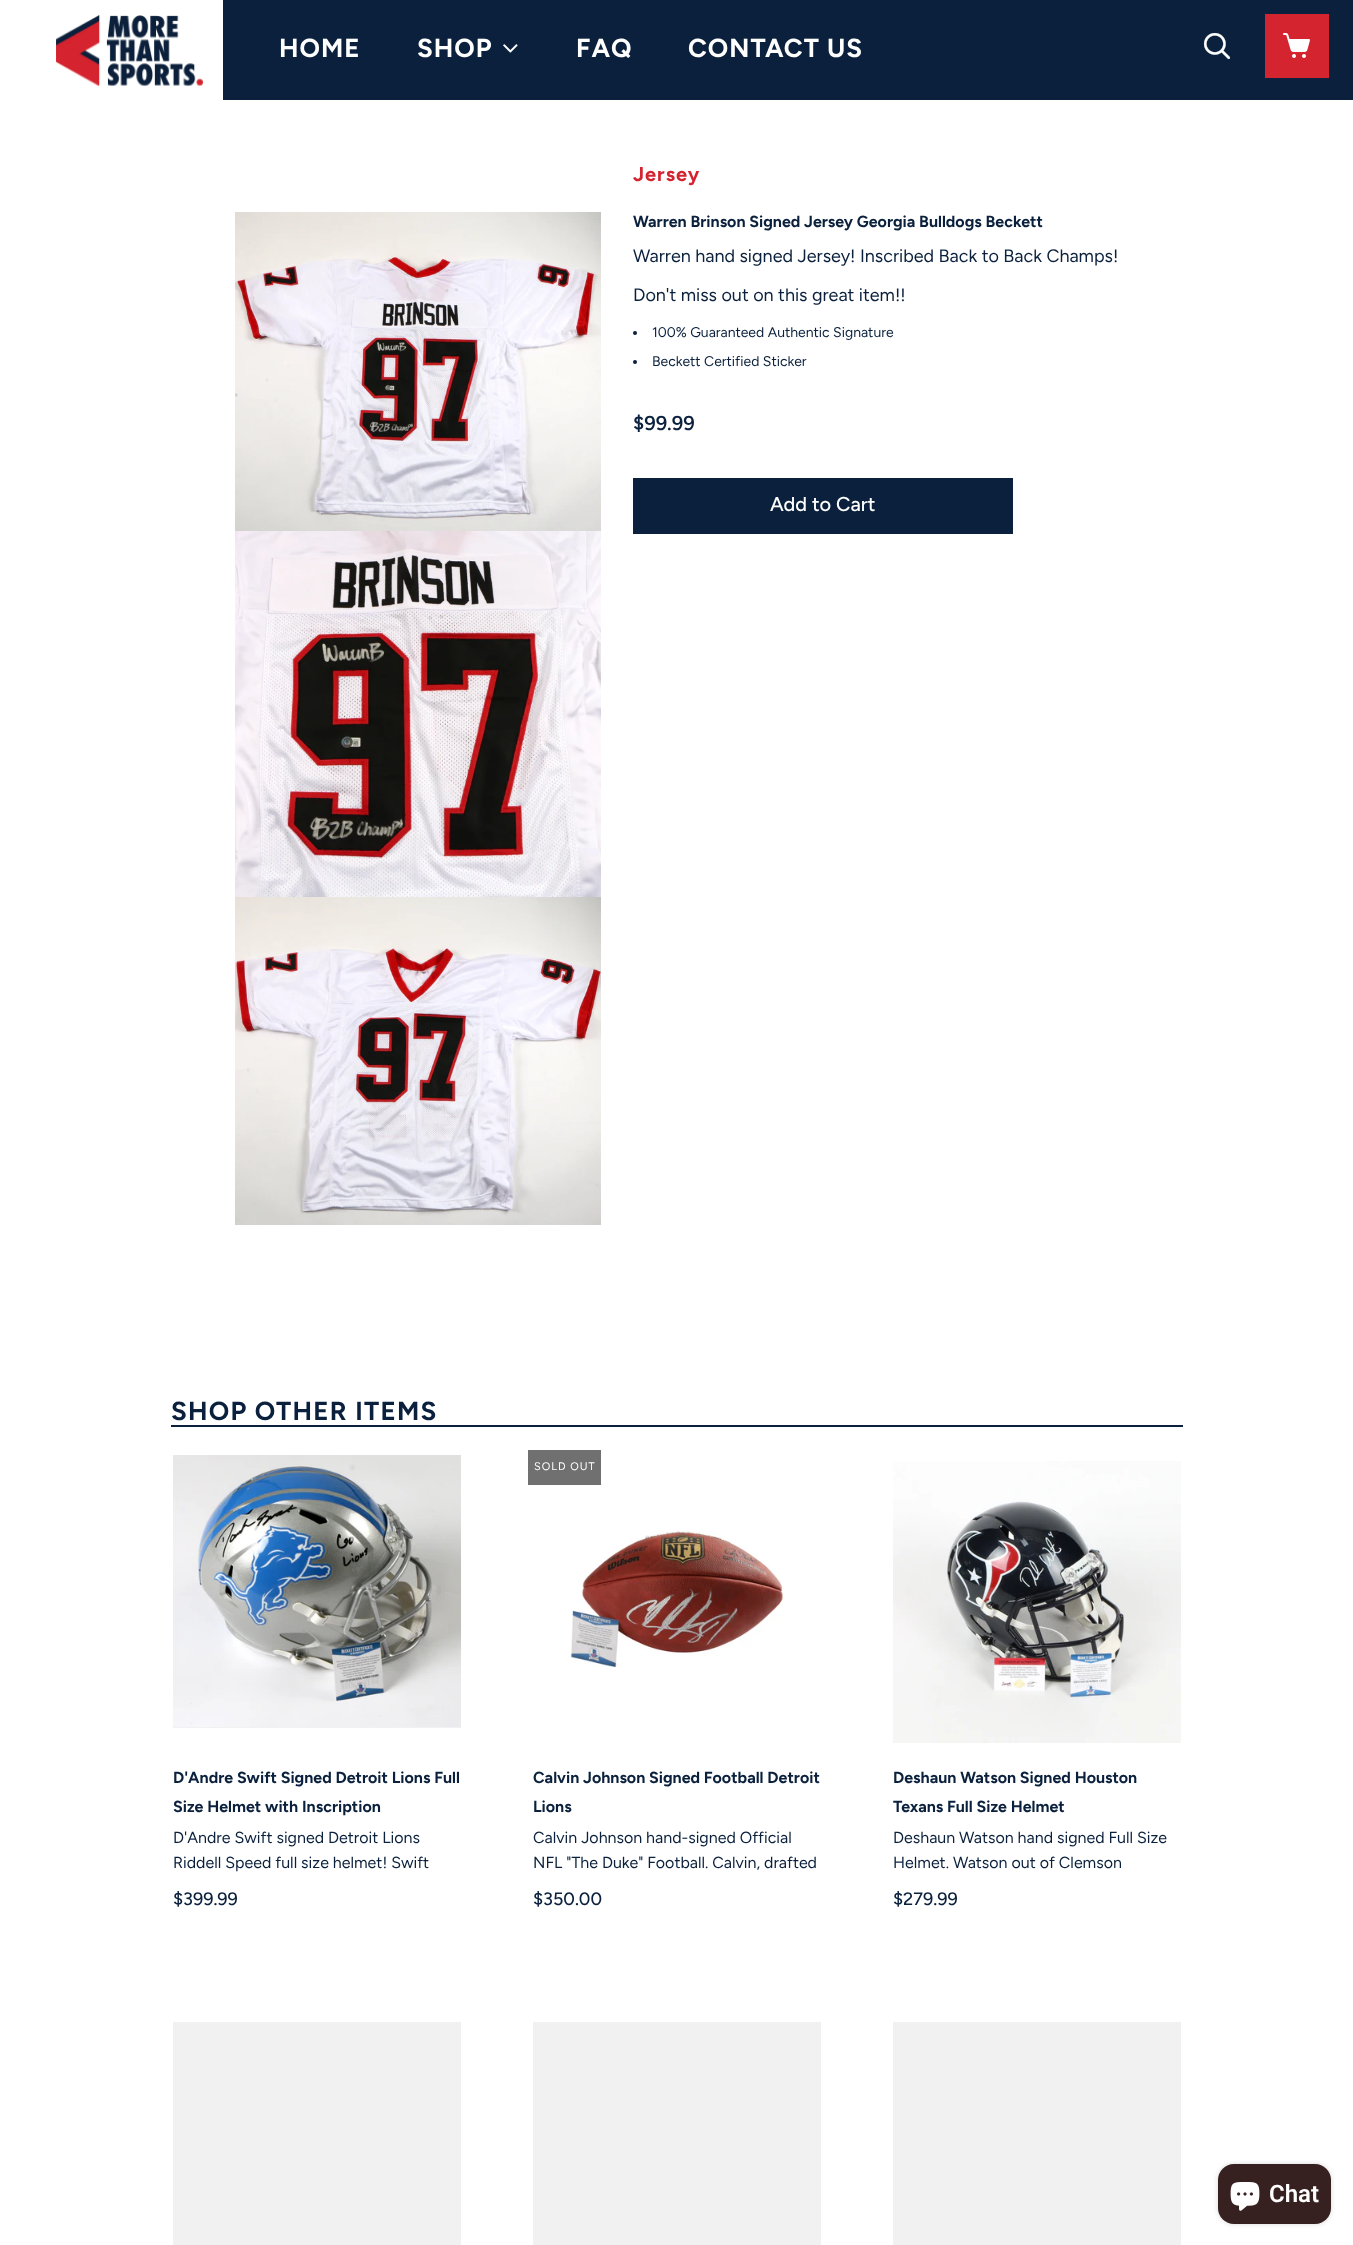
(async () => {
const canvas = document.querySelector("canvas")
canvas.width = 1353
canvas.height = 2245
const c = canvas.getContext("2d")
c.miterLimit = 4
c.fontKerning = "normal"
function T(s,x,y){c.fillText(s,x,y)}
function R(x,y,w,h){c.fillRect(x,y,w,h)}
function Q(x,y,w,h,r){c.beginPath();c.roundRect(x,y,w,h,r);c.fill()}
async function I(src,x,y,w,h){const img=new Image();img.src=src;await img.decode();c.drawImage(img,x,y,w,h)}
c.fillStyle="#fff"
R(0,0,1353,2245)
c.fillStyle="#0a203c"
R(223,0,1130,100)
await I("1.png",56,15,147,71)
c.letterSpacing="1px"
c.font="bold 26px Figtree"
c.fillStyle="#fff"
T("HOME",279,57)
T("SHOP",417,57)
await I("2.png",503,44,15,9)
T("FAQ",576,57)
T("CONTACT US",688,57)
await I("3.png",1203,32,28,28)
await I("4.png",1265,14,64,64)
await I("5.png",235,212,366,319)
await I("6.png",235,531,366,366)
await I("7.png",235,897,366,328)
c.font="bold 20px Figtree"
c.fillStyle="#d3242f"
T("Jersey",633,181)
c.letterSpacing="0px"
c.font="bold 16px Figtree"
c.fillStyle="#0a203c"
T("Warren Brinson Signed Jersey Georgia Bulldogs Beckett",633,227)
c.font="18px Figtree"
T("Warren hand signed Jersey! Inscribed Back to Back Champs!",633,262)
T("Don't miss out on this great item!!",633,301)
c.beginPath()
c.arc(635,333,2,0,7)
c.fill()
c.font="14px Figtree"
T("100% Guaranteed Authentic Signature",652,337)
c.beginPath()
c.arc(635,362,2,0,7)
c.fill()
T("Beckett Certified Sticker",652,366)
c.font="600 20px Figtree"
T("$99.99",633,430)
R(633,478,380,56)
c.font="500 20px Figtree"
c.fillStyle="#fff"
T("Add to Cart",770,511)
c.fillStyle="#0a203c"
R(171,1425,1012,2)
c.letterSpacing="1.25px"
c.font="bold 26px Figtree"
T("SHOP OTHER ITEMS",171,1420)
c.fillStyle="#f1f1f1"
R(173,1727,288,1)
await I("8.png",173,1455,288,272)
c.letterSpacing="0px"
c.font="bold 16px Figtree"
c.fillStyle="#0a203c"
T("D'Andre Swift Signed Detroit Lions Full",173,1783)
T("Size Helmet with Inscription",173,1812)
c.font="16px Figtree"
T("D'Andre Swift signed Detroit Lions",173,1843)
T("Riddell Speed full size helmet! Swift",173,1868)
c.font="500 18px Figtree"
T("$399.99",173,1905)
c.fillStyle="#707070"
R(528,1450,73,35)
c.letterSpacing="1px"
c.font="11px Figtree"
c.fillStyle="#fff"
T("SOLD OUT",534,1470)
await I("9.png",570,1531,213,137)
c.letterSpacing="0px"
c.font="bold 16px Figtree"
c.fillStyle="#0a203c"
T("Calvin Johnson Signed Football Detroit",533,1783)
T("Lions",533,1812)
c.font="16px Figtree"
T("Calvin Johnson hand-signed Official",533,1843)
T("NFL \"The Duke\" Football. Calvin, drafted",533,1868)
c.font="500 18px Figtree"
T("$350.00",533,1905)
await I("10.png",893,1461,288,282)
c.font="bold 16px Figtree"
T("Deshaun Watson Signed Houston",893,1783)
T("Texans Full Size Helmet",893,1812)
c.font="16px Figtree"
T("Deshaun Watson hand signed Full Size",893,1843)
T("Helmet. Watson out of Clemson",893,1868)
c.font="500 18px Figtree"
T("$279.99",893,1905)
c.fillStyle="#f1f1f1"
R(173,2022,288,223)
R(533,2022,288,223)
R(893,2022,288,223)
c.fillStyle="#00000026"
c.filter="blur(2.5px)"
c.beginPath()
c.roundRect(1218,2164,113,60,16)
c.fill()
c.filter="none"
c.fillStyle="#362020"
Q(1218,2164,113,60,16)
await I("11.png",1230,2182,30,29)
c.font="600 24px Roboto"
c.fillStyle="#fff"
T("Chat",1269,2202)
})()
